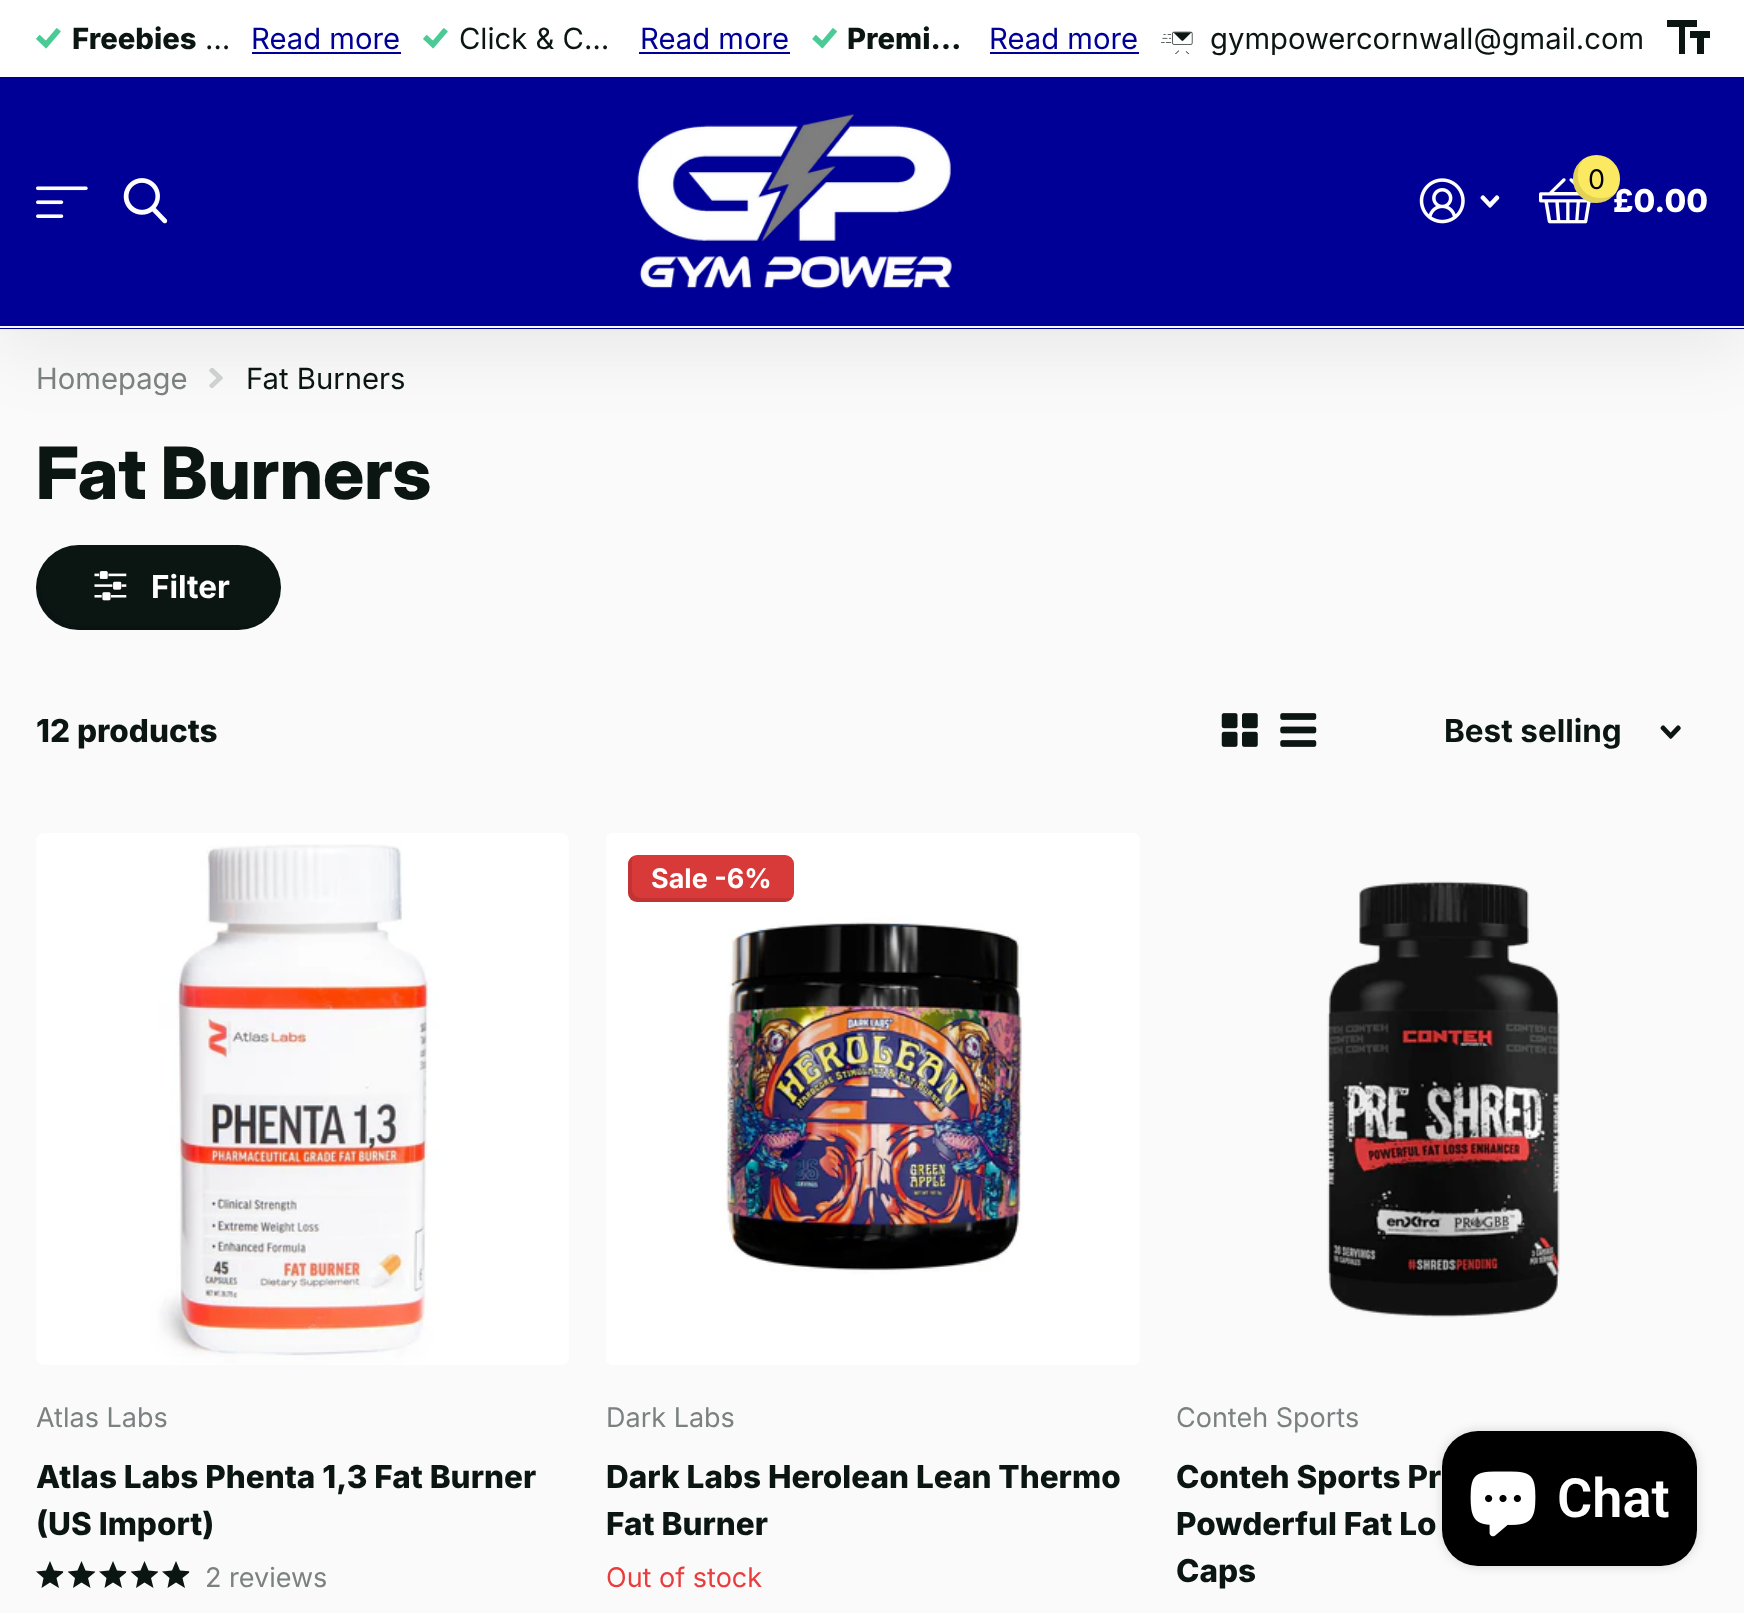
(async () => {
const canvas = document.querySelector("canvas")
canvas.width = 1744
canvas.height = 1613
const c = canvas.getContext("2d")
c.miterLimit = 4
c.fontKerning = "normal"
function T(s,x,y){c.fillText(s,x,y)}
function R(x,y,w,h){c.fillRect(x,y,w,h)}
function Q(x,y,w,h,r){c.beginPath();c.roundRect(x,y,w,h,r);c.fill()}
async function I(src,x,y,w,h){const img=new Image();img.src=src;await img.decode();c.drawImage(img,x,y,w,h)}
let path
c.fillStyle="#fafafa"
R(0,0,1744,1613)
await I("10.png",209,368,14,21)
c.fillStyle="#00000012"
c.filter="blur(36px)"
c.beginPath()
c.rect(0,20,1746,329)
c.fill()
c.filter="none"
c.fillStyle="#000096"
R(0,77,1744,252)
c.fillStyle="#fafafa"
R(0,326,1744,2)
c.fillStyle="#fff"
R(0,0,1744,77)
await I("1.png",36,28,25,21)
c.font="800 29.25px 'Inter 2'"
c.fillStyle="#0b1613"
T("Freebies",72,49)
c.font="29.25px Inter"
T("…",205,49)
c.fillStyle="#000096"
T("Read more",251,49)
R(252,52,149,2)
await I("1.png",423,28,25,21)
c.fillStyle="#0b1613"
T("Click & C…",459,49)
c.fillStyle="#000096"
T("Read more",640,49)
R(639,52,151,2)
await I("2.png",812,28,25,21)
c.font="800 29.25px 'Inter 2'"
c.fillStyle="#0b1613"
T("Premi…",847,49)
c.font="29.25px Inter"
c.fillStyle="#000096"
T("Read more",989,49)
R(990,52,149,2)
await I("3.png",1161,31,32,23)
c.fillStyle="#0b1613"
T("gympowercornwall@gmail.com",1210,49)
path = new Path2D("M1690 31v7h7v16h7v-16h6v-7zm7-11h-30v7h12v27h6v-27h12z")
c.fill(path)
await I("4.png",36,186,52,32)
await I("5.png",123,178,45,46)
await I("6.png",637,114,315,175)
await I("7.png",1419,178,46,46)
await I("8.png",1480,195,20,13)
await I("9.png",1539,178,57,46)
c.font="800 31.5px 'Inter 2'"
c.fillStyle="#fff"
T("£0.00",1613,212)
c.fillStyle="#fbea61"
Q(1573,155,47,48,23.5)
c.fillStyle="#0000001a"
path = new Path2D("M1615 194c-3 2-8 4-14 4c-23 0-29-25-18-38c-12 8-13 26-3 36c10 10 27 9 35-2z")
c.fill(path)
c.font="27px Inter"
c.fillStyle="#000"
T("0",1588,189)
c.font="29.25px Inter"
c.fillStyle="#7b8180"
T("Homepage",36,389)
c.fillStyle="#0b1613"
T("Fat Burners",246,389)
c.font="800 72px Inter"
T("Fat Burners",36,499)
Q(36,545,245,85,42.5)
c.fillStyle="#0000001a"
path = new Path2D("M49 557c-8 8-13 19-13 31c0 23 19 42 42 42h160c12 0 23-5 31-13c-7 6-16 9-26 9h-160c-23 0-43-20-43-43c0-10 3-19 9-26z")
c.fill(path)
await I("11.png",94,571,33,30)
c.font="bold 31.5px Inter"
c.fillStyle="#fff"
T("Filter",151,598)
c.font="800 31.5px 'Inter 2'"
c.fillStyle="#0b1613"
T("12 products",36,742)
await I("12.png",1221,713,37,34)
await I("13.png",1280,713,37,34)
c.font="bold 31.5px Inter"
T("Best selling",1444,742)
await I("14.png",1660,725,21,14)
await I("15.png",36,833,533,532)
c.font="27px Inter"
c.fillStyle="#7b8180"
T("Atlas Labs",36,1427)
c.font="800 31.5px 'Inter 2'"
c.fillStyle="#0b1613"
T("Atlas Labs Phenta 1,3 Fat Burner",36,1488)
T("(US Import)",36,1535)
c.fillStyle="#d1d3d3"
path = new Path2D("M64.5 1571.5l-10.5-1l-4-9.5l-4 9.5l-10 1l7.5 6.5l-2 10l8.5-5.5l9 5.5l-2.5-10z")
c.fill(path)
c.fillStyle="#fafafa"
R(36,1561,27,27)
c.save()
c.beginPath()
c.rect(36,1559,27,32)
c.clip()
c.fillStyle="#0b1613"
path = new Path2D("M64.5 1571.5l-10.5-1l-4-9.5l-4 9.5l-10 1l7.5 6.5l-2 10l8.5-5.5l9 5.5l-2.5-10z")
c.fill(path)
c.restore()
c.fillStyle="#d1d3d3"
path = new Path2D("M96 1571.5l-10.5-1l-4-9.5l-4 9.5l-10 1l7.5 6.5l-2 10l8.5-5.5l9 5.5l-2.5-10z")
c.fill(path)
c.fillStyle="#fafafa"
R(68,1561,27,27)
c.save()
c.beginPath()
c.rect(68,1559,27,32)
c.clip()
c.fillStyle="#0b1613"
path = new Path2D("M96 1571.5l-10.5-1l-4-9.5l-4 9.5l-10 1l7.5 6.5l-2 10l8.5-5.5l9 5.5l-2.5-10z")
c.fill(path)
c.restore()
c.fillStyle="#d1d3d3"
path = new Path2D("M127.5 1571.5l-10.5-1l-4-9.5l-4 9.5l-10 1l7.5 6.5l-2 10l8.5-5.5l9 5.5l-2.5-10z")
c.fill(path)
c.fillStyle="#fafafa"
R(99,1561,27,27)
c.save()
c.beginPath()
c.rect(99,1559,27,32)
c.clip()
c.fillStyle="#0b1613"
path = new Path2D("M127.5 1571.5l-10.5-1l-4-9.5l-4 9.5l-10 1l7.5 6.5l-2 10l8.5-5.5l9 5.5l-2.5-10z")
c.fill(path)
c.restore()
c.fillStyle="#d1d3d3"
path = new Path2D("M159 1571.5l-10.5-1l-4-9.5l-4 9.5l-10 1l7.5 6.5l-2 10l8.5-5.5l9 5.5l-2.5-10z")
c.fill(path)
c.fillStyle="#fafafa"
R(131,1561,27,27)
c.save()
c.beginPath()
c.rect(131,1559,27,32)
c.clip()
c.fillStyle="#0b1613"
path = new Path2D("M159 1571.5l-10.5-1l-4-9.5l-4 9.5l-10 1l7.5 6.5l-2 10l8.5-5.5l9 5.5l-2.5-10z")
c.fill(path)
c.restore()
c.fillStyle="#d1d3d3"
path = new Path2D("M190.5 1571.5l-10.5-1l-4-9.5l-4 9.5l-10 1l7.5 6.5l-2 10l8.5-5.5l9 5.5l-2.5-10z")
c.fill(path)
c.fillStyle="#fafafa"
R(162,1561,27,27)
c.save()
c.beginPath()
c.rect(162,1559,27,32)
c.clip()
c.fillStyle="#0b1613"
path = new Path2D("M190.5 1571.5l-10.5-1l-4-9.5l-4 9.5l-10 1l7.5 6.5l-2 10l8.5-5.5l9 5.5l-2.5-10z")
c.fill(path)
c.restore()
c.font="27px Inter"
c.fillStyle="#7b8180"
T("2 reviews",205,1587)
await I("16.png",606,833,534,532)
c.fillStyle="#d83939"
Q(628,855,166,47,9)
c.fillStyle="#0000001a"
path = new Path2D("M633 856c-3 2-5 5-5 8v29c0 5 4 9 9 9h148c3 0 6-2 8-4h-3h-149c-5 0-9-4-9-9v-29z")
c.fill(path)
c.font="bold 27px Inter"
c.fillStyle="#fff"
T("Sale -6%",651,888)
c.font="27px Inter"
c.fillStyle="#7b8180"
T("Dark Labs",606,1427)
c.font="800 31.5px 'Inter 2'"
c.fillStyle="#0b1613"
T("Dark Labs Herolean Lean Thermo",606,1488)
T("Fat Burner",606,1535)
c.font="27px Inter"
c.fillStyle="#e93d3d"
T("Out of stock",606,1587)
await I("17.png",1327,881,233,437)
c.fillStyle="#7b8180"
T("Conteh Sports",1176,1427)
c.font="800 31.5px 'Inter 2'"
c.fillStyle="#0b1613"
T("Conteh Sports Pr",1176,1488)
T("Powderful Fat Lo",1176,1535)
T("Caps",1176,1582)
c.fillStyle="#00000026"
c.filter="blur(5.5px)"
c.beginPath()
c.roundRect(1442,1431,255,135,36)
c.fill()
c.filter="none"
c.fillStyle="#000"
Q(1442,1431,255,135,36)
await I("18.png",1470,1471,66,66)
c.font="600 54px Roboto"
c.fillStyle="#fff"
T("Chat",1557,1517)
})()
